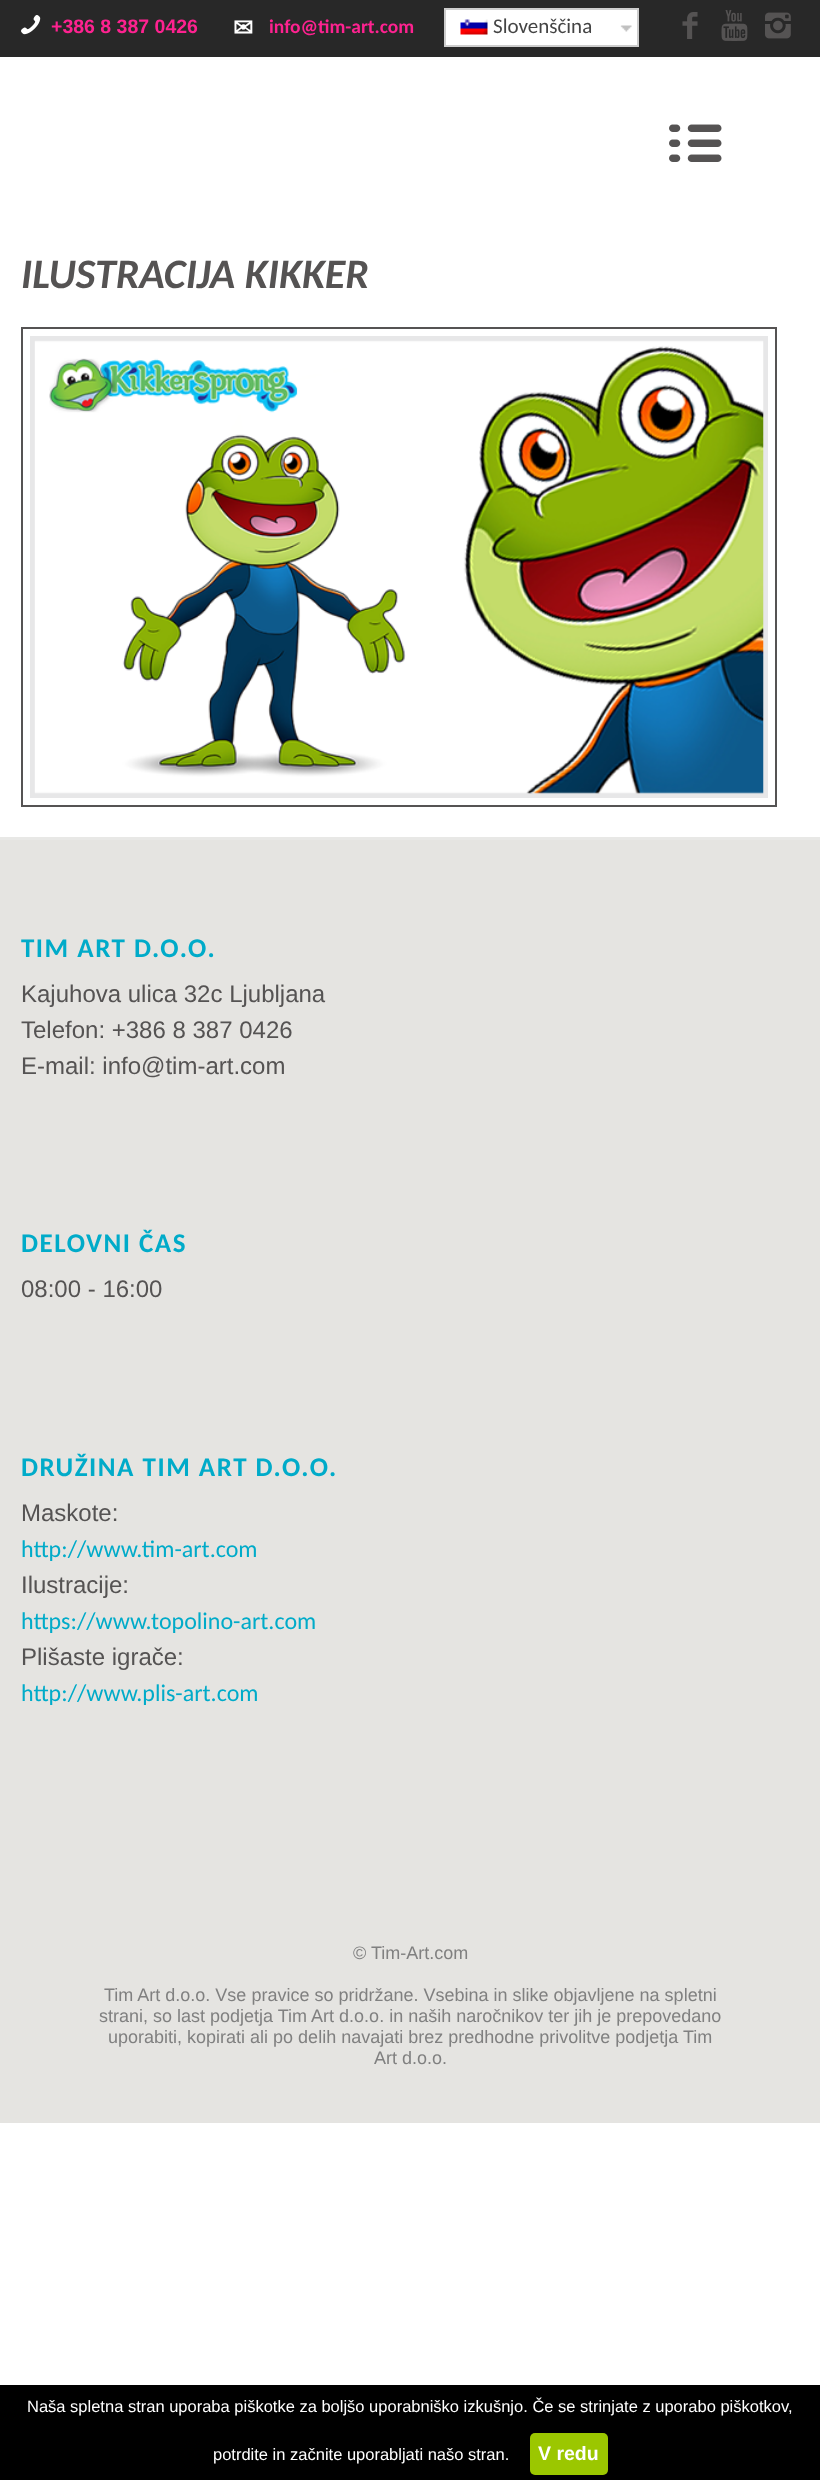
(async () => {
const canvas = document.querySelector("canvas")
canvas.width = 820
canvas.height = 2480
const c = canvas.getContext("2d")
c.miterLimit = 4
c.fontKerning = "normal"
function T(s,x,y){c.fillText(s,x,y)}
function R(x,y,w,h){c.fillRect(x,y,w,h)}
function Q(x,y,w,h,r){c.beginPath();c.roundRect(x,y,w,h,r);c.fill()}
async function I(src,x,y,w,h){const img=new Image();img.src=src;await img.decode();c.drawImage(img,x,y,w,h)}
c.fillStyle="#fff"
R(0,0,820,2480)
c.fillStyle="#282828"
R(0,0,820,57)
await I("1.png",21,15,20,20)
c.font="bold 19.5px Liberation Sans"
c.fillStyle="#fe2290"
T("+386 8 387 0426",51,33)
c.font="bold 24px DejaVu Sans"
c.fillStyle="#fff"
T("✉",233,36)
c.font="bold 19.5px Carlito"
c.fillStyle="#fe2290"
T("info@tim-art.com",269,33)
c.fillStyle="#fff"
R(446,10,191,35)
await I("2.png",620,25,12,7)
c.strokeStyle="#cdcdcd"
c.lineWidth=2
c.strokeRect(445,9,193,37)
await I("3.png",460,19,28,16)
c.font="21px Carlito"
c.fillStyle="#444"
T("Slovenščina",493,33)
await I("4.png",682,12,16,27)
await I("5.png",721,10,27,31)
await I("6.png",765,12,26,27)
await I("7.png",669,124,53,38)
c.font="italic bold 42px Carlito"
c.fillStyle="#555353"
T("ILUSTRACIJA KIKKER",21,288)
c.strokeStyle="#555353"
c.strokeRect(22,328,754,478)
await I("8.png",30,336,738,462)
c.fillStyle="#e5e4e1"
R(0,840,820,1283)
c.fillStyle="#e8e8e6"
R(0,837,820,3)
c.save()
c.beginPath()
c.rect(21,908,779,177)
c.clip()
c.letterSpacing="1.5px"
c.font="bold 27px Carlito"
c.fillStyle="#00abc9"
T("TIM ART D.O.O.",21,957)
c.restore()
c.font="24px Liberation Sans"
c.fillStyle="#555353"
T("Kajuhova ulica 32c Ljubljana",21,1002)
T("Telefon: +386 8 387 0426",21,1038)
T("E-mail: info@tim-art.com",21,1074)
c.letterSpacing="1.5px"
c.font="bold 27px Carlito"
c.fillStyle="#00abc9"
T("DELOVNI ČAS",21,1252)
c.letterSpacing="0px"
c.font="24px Liberation Sans"
c.fillStyle="#555353"
T("08:00 - 16:00",21,1297)
c.letterSpacing="1.5px"
c.font="bold 27px Carlito"
c.fillStyle="#00abc9"
T("DRUŽINA TIM ART D.O.O.",21,1476)
c.letterSpacing="0px"
c.font="24px Liberation Sans"
c.fillStyle="#555353"
T("Maskote:",21,1521)
c.font="24px Carlito"
c.fillStyle="#00abc9"
T("http://www.tim-art.com",21,1557)
c.font="24px Liberation Sans"
c.fillStyle="#555353"
T("Ilustracije:",21,1593)
c.font="24px Carlito"
c.fillStyle="#00abc9"
T("https://www.topolino-art.com",21,1629)
c.font="24px Liberation Sans"
c.fillStyle="#555353"
T("Plišaste igrače:",21,1665)
c.font="24px Carlito"
c.fillStyle="#00abc9"
T("http://www.plis-art.com",21,1701)
c.font="18px Liberation Sans"
c.fillStyle="#808080"
T("© Tim-Art.com",353,1959)
T("Tim Art d.o.o. Vse pravice so pridržane. Vsebina in slike objavljene na spletni",104,2001)
T("strani, so last podjetja Tim Art d.o.o. in naših naročnikov ter jih je prepovedano",99,2022)
T("uporabiti, kopirati ali po delih navajati brez predhodne privolitve podjetja Tim",108,2043)
T("Art d.o.o.",374,2064)
c.fillStyle="#000"
R(0,2385,820,95)
c.font="16.5px Liberation Sans"
c.fillStyle="#fff"
T("Naša spletna stran uporaba piškotke za boljšo uporabniško izkušnjo. Če se strinjate z uporabo piškotkov,",27,2412)
T("potrdite in začnite uporabljati našo stran.",213,2460)
c.fillStyle="#9bc700"
Q(530,2433,78,42,5)
c.font="bold 19.5px Liberation Sans"
c.fillStyle="#fff"
T("V redu",538,2460)
})()
